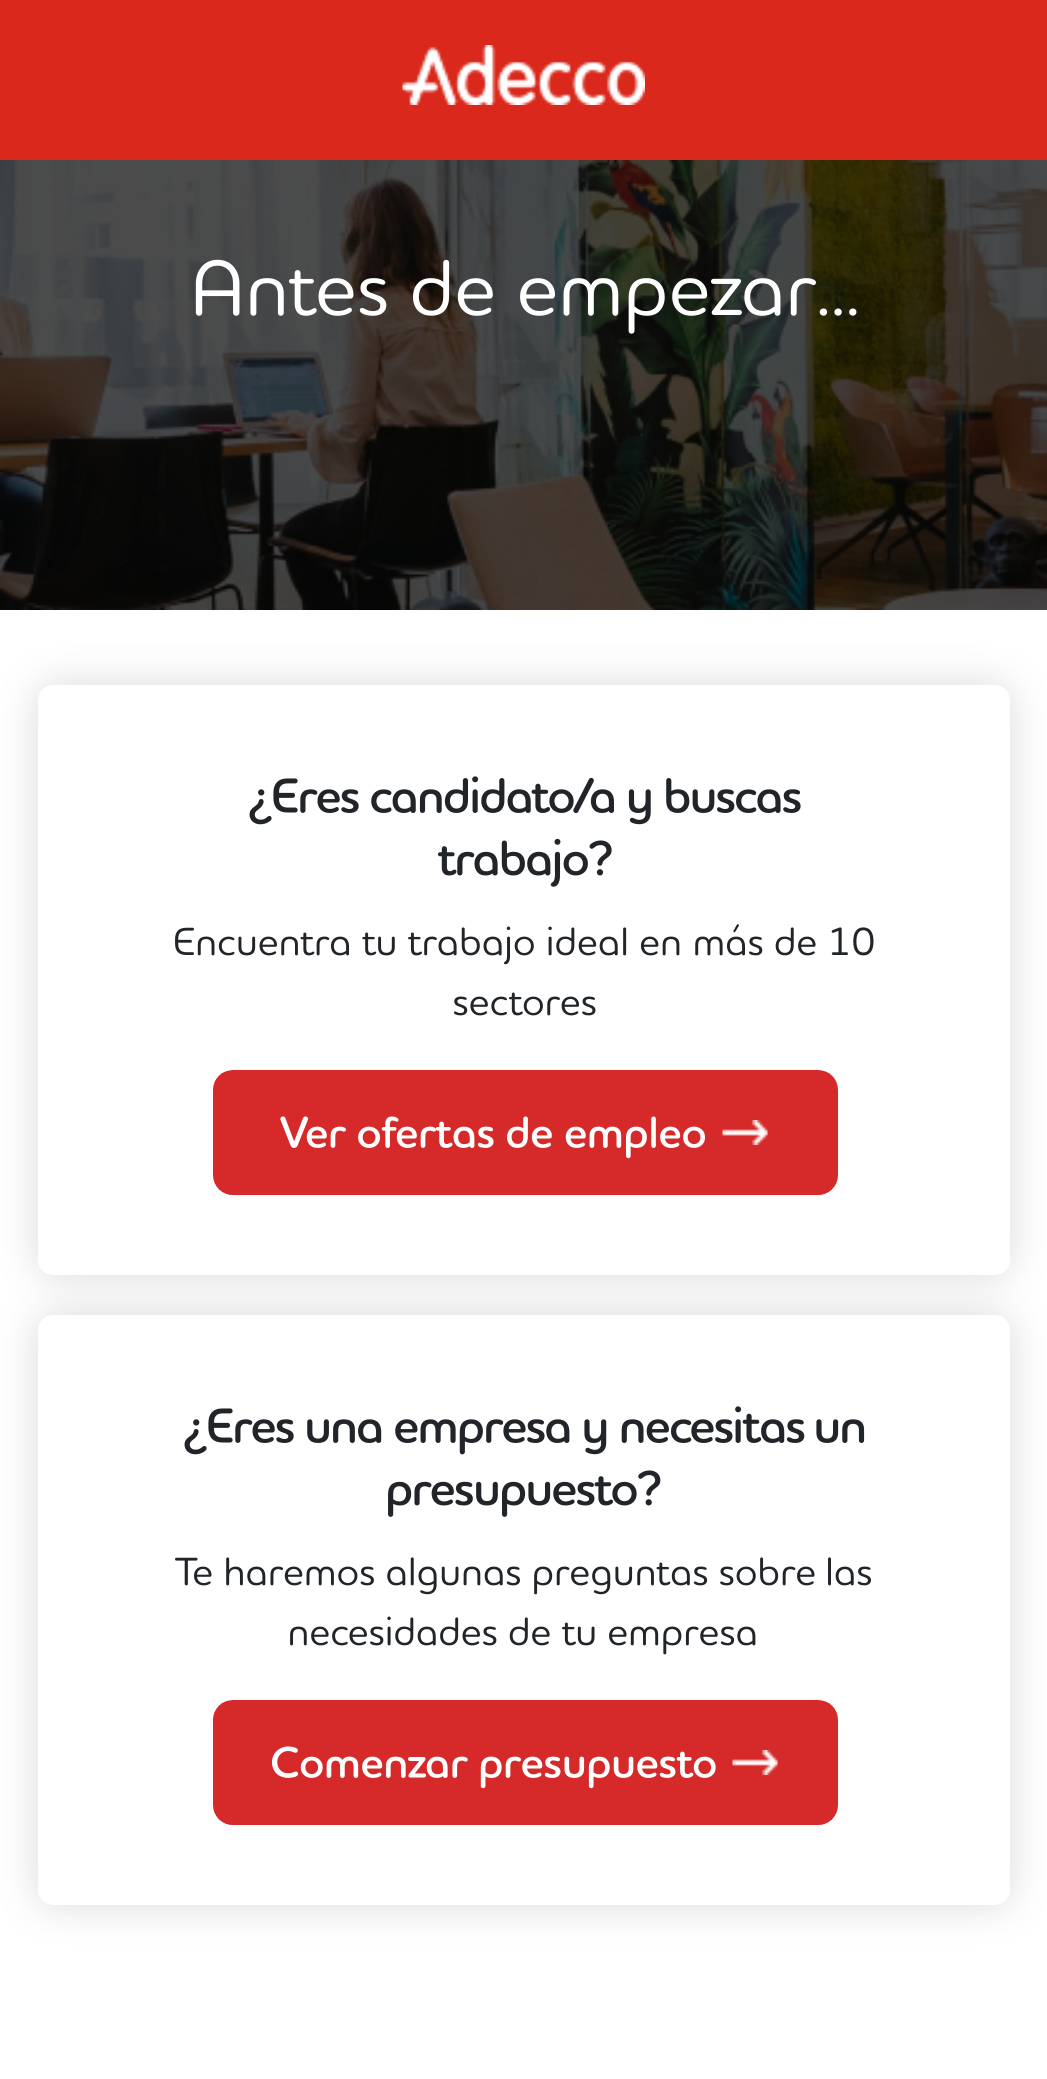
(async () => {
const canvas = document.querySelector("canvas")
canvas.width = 1047
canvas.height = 2079
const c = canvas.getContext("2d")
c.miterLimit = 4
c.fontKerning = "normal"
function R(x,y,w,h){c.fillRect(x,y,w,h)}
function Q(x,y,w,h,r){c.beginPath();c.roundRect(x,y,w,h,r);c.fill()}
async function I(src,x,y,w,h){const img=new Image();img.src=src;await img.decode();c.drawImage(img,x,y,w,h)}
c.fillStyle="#fff"
R(0,0,1047,2079)
c.fillStyle="#da291c"
R(0,0,1047,160)
await I("1.png",402,45,243,60)
await I("2.png",0,160,1047,450)
await I("3.png",195,259,662,75)
c.fillStyle="#00000026"
c.filter="blur(20px)"
c.beginPath()
c.roundRect(38,685,972,590,15)
c.fill()
c.filter="none"
c.fillStyle="#fff"
Q(38,685,972,590,15)
await I("4.png",249,776,365,49)
await I("5.png",628,778,173,47)
await I("6.png",438,838,174,49)
await I("7.png",175,926,505,39)
await I("8.png",695,924,179,32)
await I("9.png",454,992,142,24)
c.fillStyle="#d62929"
Q(213,1070,625,125,20)
await I("10.png",280,1116,425,43)
await I("11.png",722,1120,46,25)
c.fillStyle="#00000026"
c.filter="blur(20px)"
c.beginPath()
c.roundRect(38,1315,972,590,15)
c.fill()
c.filter="none"
c.fillStyle="#fff"
Q(38,1315,972,590,15)
await I("12.png",184,1406,621,49)
await I("13.png",816,1419,49,24)
await I("14.png",388,1470,273,47)
await I("15.png",175,1557,640,38)
await I("16.png",828,1557,43,29)
await I("17.png",290,1616,466,39)
c.fillStyle="#d62929"
Q(213,1700,625,125,20)
await I("18.png",272,1746,444,43)
await I("11.png",732,1750,46,25)
})()
